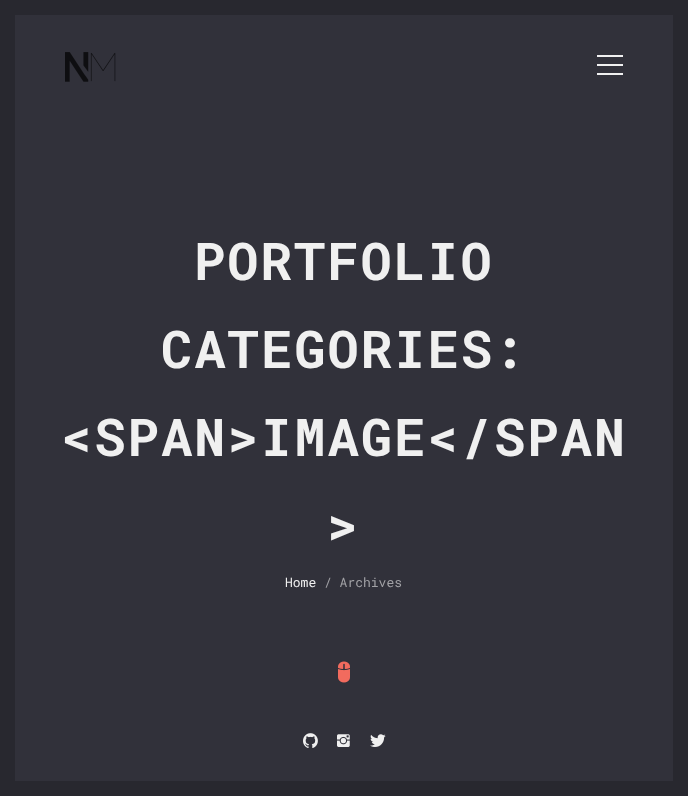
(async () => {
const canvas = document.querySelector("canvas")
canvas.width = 688
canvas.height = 796
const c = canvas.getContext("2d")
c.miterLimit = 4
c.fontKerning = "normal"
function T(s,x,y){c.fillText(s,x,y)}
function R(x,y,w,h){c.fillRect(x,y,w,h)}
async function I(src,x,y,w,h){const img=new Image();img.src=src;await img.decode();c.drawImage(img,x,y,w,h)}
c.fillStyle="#31313a"
R(0,0,688,796)
c.fillStyle="#28282f"
R(0,0,15,796)
R(15,0,658,15)
R(673,0,15,796)
await I("1.png",65,52,51,30)
c.fillStyle="#f0f0f0"
R(597,55,26,2)
R(597,64,26,2)
R(597,73,26,2)
c.letterSpacing="2.1px"
c.font="bold 52px Roboto Mono"
T("PORTFOLIO",194,280)
T("CATEGORIES:",161,368)
T("<SPAN>IMAGE<\/SPAN",61,456)
T(">",327,544)
c.letterSpacing="0px"
c.font="13px Roboto Mono"
T("Home",285,587)
c.fillStyle="#a2a2a6"
T("/ Archives",324,587)
await I("2.png",338,661,12,22)
await I("3.png",303,733,15,15)
await I("4.png",337,734,13,13)
await I("5.png",370,734,16,13)
c.fillStyle="#28282f"
R(15,781,658,15)
})()
